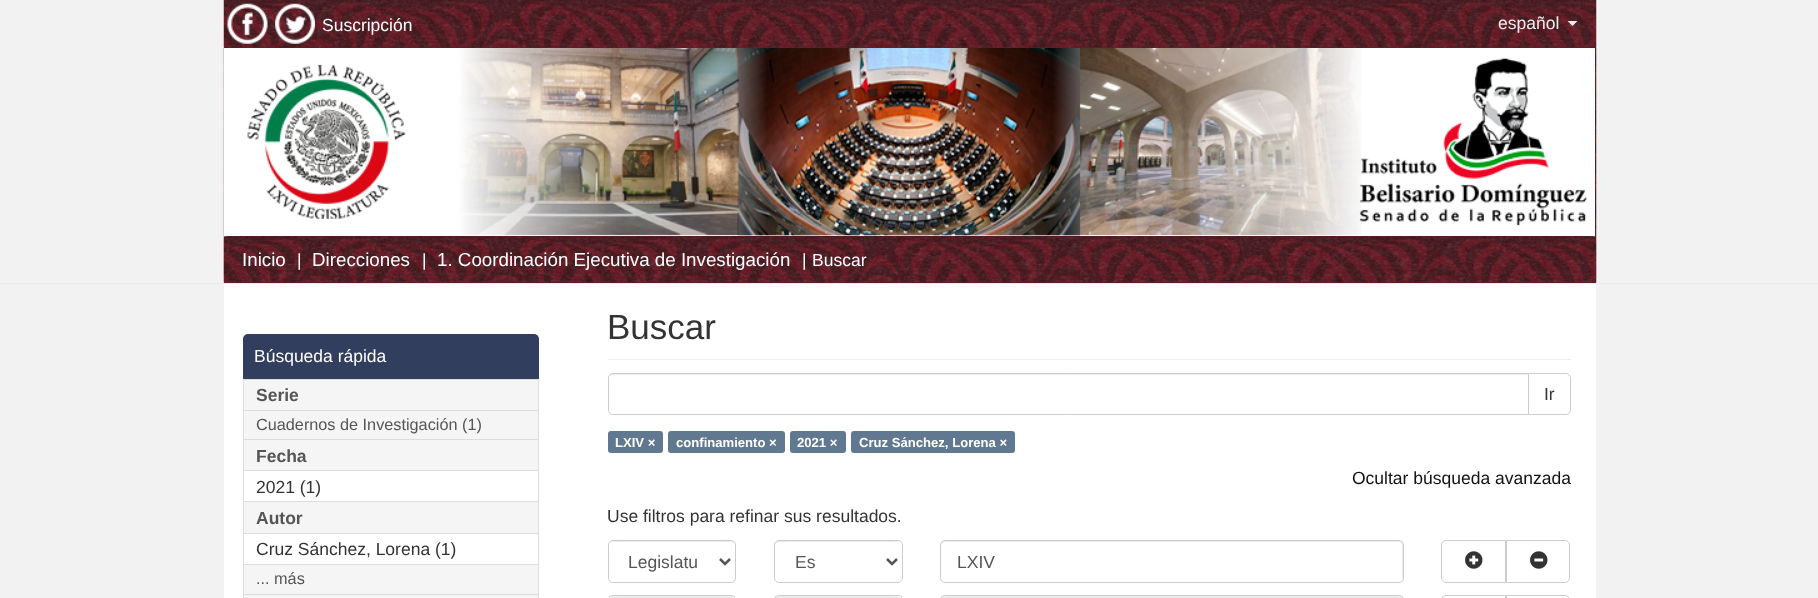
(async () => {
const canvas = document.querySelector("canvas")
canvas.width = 1818
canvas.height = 598
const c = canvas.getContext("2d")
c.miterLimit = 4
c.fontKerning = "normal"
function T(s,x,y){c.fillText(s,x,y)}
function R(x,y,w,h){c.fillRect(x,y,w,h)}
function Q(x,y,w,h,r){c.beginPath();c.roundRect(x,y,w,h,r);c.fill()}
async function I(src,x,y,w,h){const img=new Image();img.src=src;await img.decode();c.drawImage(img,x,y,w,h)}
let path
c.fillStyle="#f2f2f2"
R(0,0,1818,598)
c.fillStyle="#5e2129"
R(224,47,1372,1)
await I("1.png",223,0,1374,48)
await I("2.png",227,3,41,41)
await I("3.png",275,3,40,41)
c.font="17.5px Liberation Sans"
c.fillStyle="#fff"
T("Suscripción",322,31)
c.fillStyle="#eee"
T("español",1498,29)
path = new Path2D("M1567.5 21h10l-5 5z")
c.fill(path)
await I("4.png",223,48,1374,188)
c.fillStyle="#5e2129"
R(224,236,1372,47)
await I("6.png",223,236,1374,47)
await I("5.png",223,48,1372,189)
c.fillStyle="#eaeaea"
R(0,283,1818,1)
c.fillStyle="#5e2129"
Q(224,236,1372,47,5)
await I("7.png",223,236,1374,47)
c.font="18.75px Liberation Sans"
c.fillStyle="#fff"
T("Inicio",242,266)
c.font="17.5px Liberation Sans"
T("|",297,266)
c.font="18.75px Liberation Sans"
T("Direcciones",312,266)
c.font="17.5px Liberation Sans"
T("|",422,266)
c.font="18.75px Liberation Sans"
T("1. Coordinación Ejecutiva de Investigación",437,266)
c.font="17.5px Liberation Sans"
T("|",802,266)
T("Buscar",812,266)
R(224,284,1372,314)
c.fillStyle="#313e5d"
c.beginPath()
c.roundRect(243,334,296,45,[5,5,0,0])
c.fill()
c.fillStyle="#fff"
T("Búsqueda rápida",254,362)
c.fillStyle="#f5f5f5"
c.beginPath()
c.rect(243.5,410.5,295,29)
c.fill()
c.strokeStyle="#ddd"
c.stroke()
c.beginPath()
c.rect(243.5,379.5,295,31)
c.fill()
c.stroke()
c.font="bold 17.5px Liberation Sans"
c.fillStyle="#555"
T("Serie",256,401)
c.font="16.25px Liberation Sans"
T("Cuadernos de Investigación (1)",256,430)
c.strokeRect(243.5,470.5,295,32)
c.fillStyle="#f5f5f5"
c.beginPath()
c.rect(243.5,439.5,295,31)
c.fill()
c.stroke()
c.font="bold 17.5px Liberation Sans"
c.fillStyle="#555"
T("Fecha",256,462)
c.font="17.5px Liberation Sans"
c.fillStyle="#333"
T("2021 (1)",256,493)
c.strokeRect(243.5,533.5,295,31)
c.fillStyle="#f5f5f5"
c.beginPath()
c.rect(243.5,501.5,295,32)
c.fill()
c.stroke()
c.font="bold 17.5px Liberation Sans"
c.fillStyle="#555"
T("Autor",256,524)
c.font="17.5px Liberation Sans"
c.fillStyle="#333"
T("Cruz Sánchez, Lorena (1)",256,555)
c.fillStyle="#f5f5f5"
c.beginPath()
c.rect(243.5,564.5,295,30)
c.fill()
c.stroke()
c.font="16.25px Liberation Sans"
c.fillStyle="#555"
T("... más",256,584)
c.fillStyle="#f5f5f5"
c.beginPath()
c.rect(243.5,594.5,295,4)
c.fill()
c.stroke()
c.fillStyle="#eee"
R(608,359,963,1)
c.font="35px Liberation Sans"
c.fillStyle="#333"
T("Buscar",607,339)
c.beginPath()
c.roundRect(1528.5,373.5,42,41,[0,4.5,4.5,0])
c.strokeStyle="#ccc"
c.stroke()
c.fillStyle="#fff"
c.beginPath()
c.roundRect(608,373,921,42,[5,0,0,5])
c.fill()
c.fillStyle="#ececec"
path = new Path2D("M612 375h916v-1h-915c-3 0-4 2-4 5c0-2 1-4 3-4z")
c.fill(path)
c.beginPath()
c.roundRect(608.5,373.5,920,41,[4.5,0,0,4.5])
c.stroke()
c.font="17.5px Liberation Sans"
c.fillStyle="#333"
T("Ir",1544,400)
c.fillStyle="#607890"
Q(608,431,55,22,3)
c.font="bold 13.1px Liberation Sans"
c.fillStyle="#fff"
T("LXIV ×",615,447)
c.fillStyle="#607890"
Q(668,431,117,22,3)
c.fillStyle="#fff"
T("confinamiento ×",676,447)
c.fillStyle="#607890"
Q(790,431,56,22,3)
c.fillStyle="#fff"
T("2021 ×",797,447)
c.fillStyle="#607890"
Q(851,431,164,22,3)
c.fillStyle="#fff"
T("Cruz Sánchez, Lorena ×",859,447)
c.font="17.5px Liberation Sans"
c.fillStyle="#111"
T("Ocultar búsqueda avanzada",1352,484)
c.fillStyle="#333"
T("Use filtros para refinar sus resultados.",607,522)
c.fillStyle="#ececec"
path = new Path2D("M612 542h119c2 0 4 2 4 4c0-10-21-5-24-5h-78c-3 0-24-5-24 5c0-2 1-4 3-4z")
c.fill(path)
c.beginPath()
c.roundRect(608.5,540.5,127,42,4.5)
c.stroke()
path = new Path2D("M720 559l5 5l5-5")
c.strokeStyle="#555"
c.lineWidth=2.5
c.stroke(path)
c.fillStyle="#555"
T("Legislatu",628,568)
c.fillStyle="#ececec"
path = new Path2D("M779 542h119c2 0 3 2 3 4c0-10-21-5-24-5h-78c-3 0-24-5-24 5c0-2 2-4 4-4z")
c.fill(path)
c.beginPath()
c.roundRect(774.5,540.5,128,42,4.5)
c.strokeStyle="#ccc"
c.lineWidth=1
c.stroke()
path = new Path2D("M887 559l5 5l5-5")
c.strokeStyle="#555"
c.lineWidth=2.5
c.stroke(path)
c.fillStyle="#555"
T("Es",795,568)
c.fillStyle="#ececec"
path = new Path2D("M945 542h454c2 0 3 2 3 4v34c1-1 1-2 1-3v-32c0-2-2-4-4-4h-454c-2 0-4 2-4 4v1c0-2 2-4 4-4z")
c.fill(path)
c.beginPath()
c.roundRect(940.5,540.5,463,42,4.5)
c.strokeStyle="#ccc"
c.lineWidth=1
c.stroke()
c.fillStyle="#555"
T("LXIV",957,568)
c.beginPath()
c.roundRect(1441.5,540.5,64,42,[4.5,0,0,4.5])
c.stroke()
await I("8.png",1465,551,18,18)
c.beginPath()
c.roundRect(1506.5,540.5,63,42,[0,4.5,4.5,0])
c.stroke()
await I("9.png",1530,551,18,18)
c.fillStyle="#ececec"
path = new Path2D("M612 598h119c2 0 4 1 4 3c0-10-21-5-24-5h-78c-3 0-24-5-24 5c0-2 1-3 3-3z")
c.fill(path)
c.beginPath()
c.roundRect(608.5,595.5,127,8,4.5)
c.stroke()
path = new Path2D("M779 598h119c2 0 3 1 3 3c0-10-21-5-24-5h-78c-3 0-24-5-24 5c0-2 2-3 4-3z")
c.fill(path)
c.beginPath()
c.roundRect(774.5,595.5,128,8,4.5)
c.stroke()
path = new Path2D("M945 598h454c2 0 3 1 3 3v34c1-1 1-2 1-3v-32c0-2-2-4-4-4h-454c-2 0-4 2-4 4v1c0-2 2-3 4-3z")
c.fill(path)
c.beginPath()
c.roundRect(940.5,595.5,463,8,4.5)
c.stroke()
path = new Path2D("M1446 595.5h59.5v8h-59.5c-2.5 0-4.5-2-4.5-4.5v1c0-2.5 2-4.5 4.5-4.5z")
c.stroke(path)
path = new Path2D("M1506.5 595.5h58.5c2.5 0 4.5 2 4.5 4.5v-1c0 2.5-2 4.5-4.5 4.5h-58.5z")
c.stroke(path)
})()
